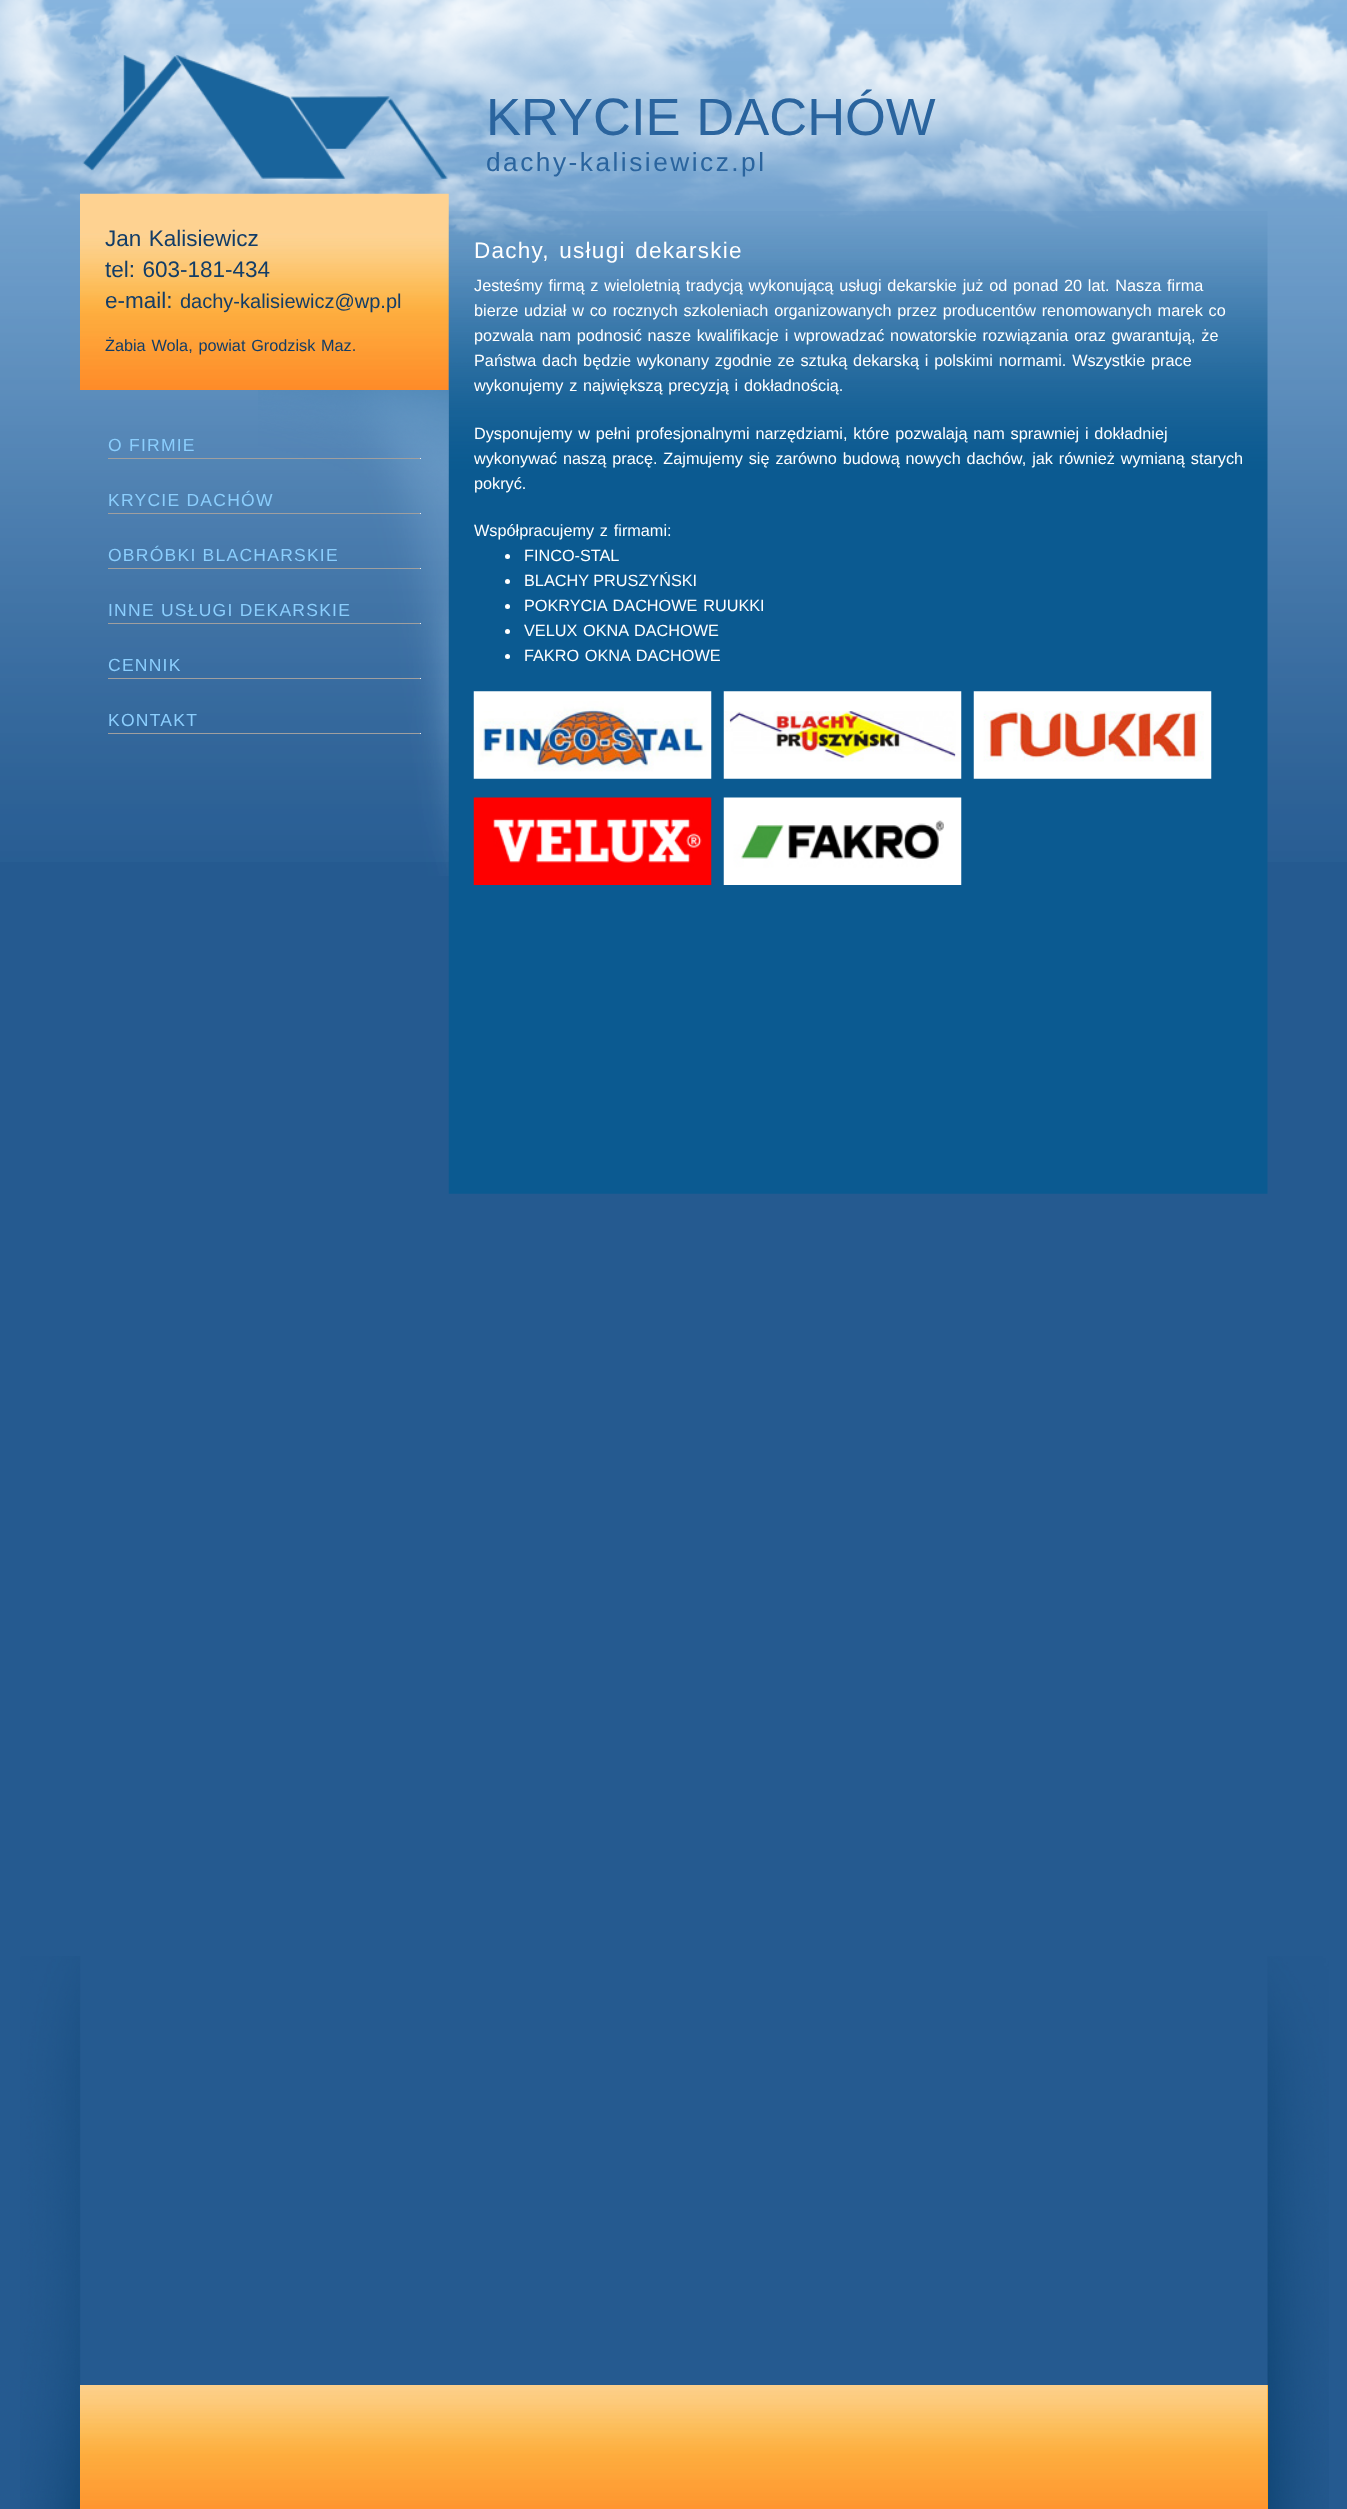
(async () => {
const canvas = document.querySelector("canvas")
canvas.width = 1347
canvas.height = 2509
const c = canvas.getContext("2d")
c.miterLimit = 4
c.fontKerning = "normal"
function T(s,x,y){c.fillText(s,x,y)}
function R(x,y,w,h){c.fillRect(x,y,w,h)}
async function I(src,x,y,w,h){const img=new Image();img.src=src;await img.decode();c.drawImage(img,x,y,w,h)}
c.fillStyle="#255a90"
R(0,0,1347,2509)
await I("1.png",0,0,1347,862)
await I("2.png",0,0,1347,247)
await I("3.png",20,1956,1309,553)
await I("4.png",82,55,366,124)
c.wordSpacing="1.25px"
c.font="52.5px Liberation Sans"
c.fillStyle="#2a649e"
T("KRYCIE DACHÓW",486,135)
c.letterSpacing="2.5px"
c.wordSpacing="0px"
c.font="26.25px Liberation Sans"
T("dachy-kalisiewicz.pl",486,171)
await I("5.png",80,193,369,197)
c.letterSpacing="0px"
c.wordSpacing="1.25px"
c.font="22.5px Liberation Sans"
c.fillStyle="#133d67"
T("Jan Kalisiewicz",105,246)
T("tel: 603-181-434",105,277)
c.wordSpacing="0px"
T("e-mail:",105,308)
c.font="20px Liberation Sans"
T("dachy-kalisiewicz@wp.pl",180,308)
c.wordSpacing="1.25px"
c.font="16.25px Liberation Sans"
T("Żabia Wola, powiat Grodzisk Maz.",105,351)
await I("6.png",448,211,820,983)
c.letterSpacing="1.25px"
c.wordSpacing="2px"
c.font="22.5px Liberation Sans"
c.fillStyle="#fff"
T("Dachy, usługi dekarskie",474,258)
c.letterSpacing="0px"
c.wordSpacing="1.25px"
c.font="16.25px Liberation Sans"
T("Jesteśmy firmą z wieloletnią tradycją wykonującą usługi dekarskie już od ponad 20 lat. Nasza firma",474,291)
T("bierze udział w co rocznych szkoleniach organizowanych przez producentów renomowanych marek co",474,316)
T("pozwala nam podnosić nasze kwalifikacje i wprowadzać nowatorskie rozwiązania oraz gwarantują, że",474,341)
T("Państwa dach będzie wykonany zgodnie ze sztuką dekarską i polskimi normami. Wszystkie prace",474,366)
T("wykonujemy z największą precyzją i dokładnością.",474,391)
T("Dysponujemy w pełni profesjonalnymi narzędziami, które pozwalają nam sprawniej i dokładniej",474,439)
c.wordSpacing="1.4px"
T("wykonywać naszą pracę. Zajmujemy się zarówno budową nowych dachów, jak również wymianą starych",474,464)
c.wordSpacing="0px"
T("pokryć.",474,489)
c.wordSpacing="1.25px"
T("Współpracujemy z firmami:",474,536)
c.beginPath()
c.arc(507.5,556.5,2.5,0,7)
c.fill()
c.wordSpacing="0px"
T("FINCO-STAL",524,561)
c.beginPath()
c.arc(507.5,581.5,2.5,0,7)
c.fill()
T("BLACHY PRUSZYŃSKI",524,586)
c.beginPath()
c.arc(507.5,606.5,2.5,0,7)
c.fill()
c.wordSpacing="1.25px"
T("POKRYCIA DACHOWE RUUKKI",524,611)
c.beginPath()
c.arc(507.5,631.5,2.5,0,7)
c.fill()
T("VELUX OKNA DACHOWE",524,636)
c.beginPath()
c.arc(507.5,656.5,2.5,0,7)
c.fill()
T("FAKRO OKNA DACHOWE",524,661)
await I("7.png",473,691,239,88)
await I("8.png",723,691,239,88)
await I("9.png",973,691,239,88)
await I("10.png",473,797,239,88)
await I("11.png",723,797,239,88)
await I("12.png",258,390,191,486)
c.letterSpacing="1.25px"
c.wordSpacing="0px"
c.font="17.5px Liberation Sans"
c.fillStyle="#8bcefd"
T("O FIRMIE",108,451)
c.fillStyle="#9f9f9f"
R(108,458,313,1)
c.fillStyle="#eee"
R(420,458,1,1)
c.fillStyle="#8bcefd"
T("KRYCIE DACHÓW",108,506)
c.fillStyle="#9f9f9f"
R(108,513,313,1)
c.fillStyle="#eee"
R(420,513,1,1)
c.fillStyle="#8bcefd"
T("OBRÓBKI BLACHARSKIE",108,561)
c.fillStyle="#9f9f9f"
R(108,568,313,1)
c.fillStyle="#eee"
R(420,568,1,1)
c.fillStyle="#8bcefd"
T("INNE USŁUGI DEKARSKIE",108,616)
c.fillStyle="#9f9f9f"
R(108,623,313,1)
c.fillStyle="#eee"
R(420,623,1,1)
c.fillStyle="#8bcefd"
T("CENNIK",108,671)
c.fillStyle="#9f9f9f"
R(108,678,313,1)
c.fillStyle="#eee"
R(420,678,1,1)
c.fillStyle="#8bcefd"
T("KONTAKT",108,726)
c.fillStyle="#9f9f9f"
R(108,733,313,1)
c.fillStyle="#eee"
R(420,733,1,1)
c.fillStyle="#ff9b00"
R(1267,2385,1,124)
await I("13.png",80,2385,1188,124)
})()
